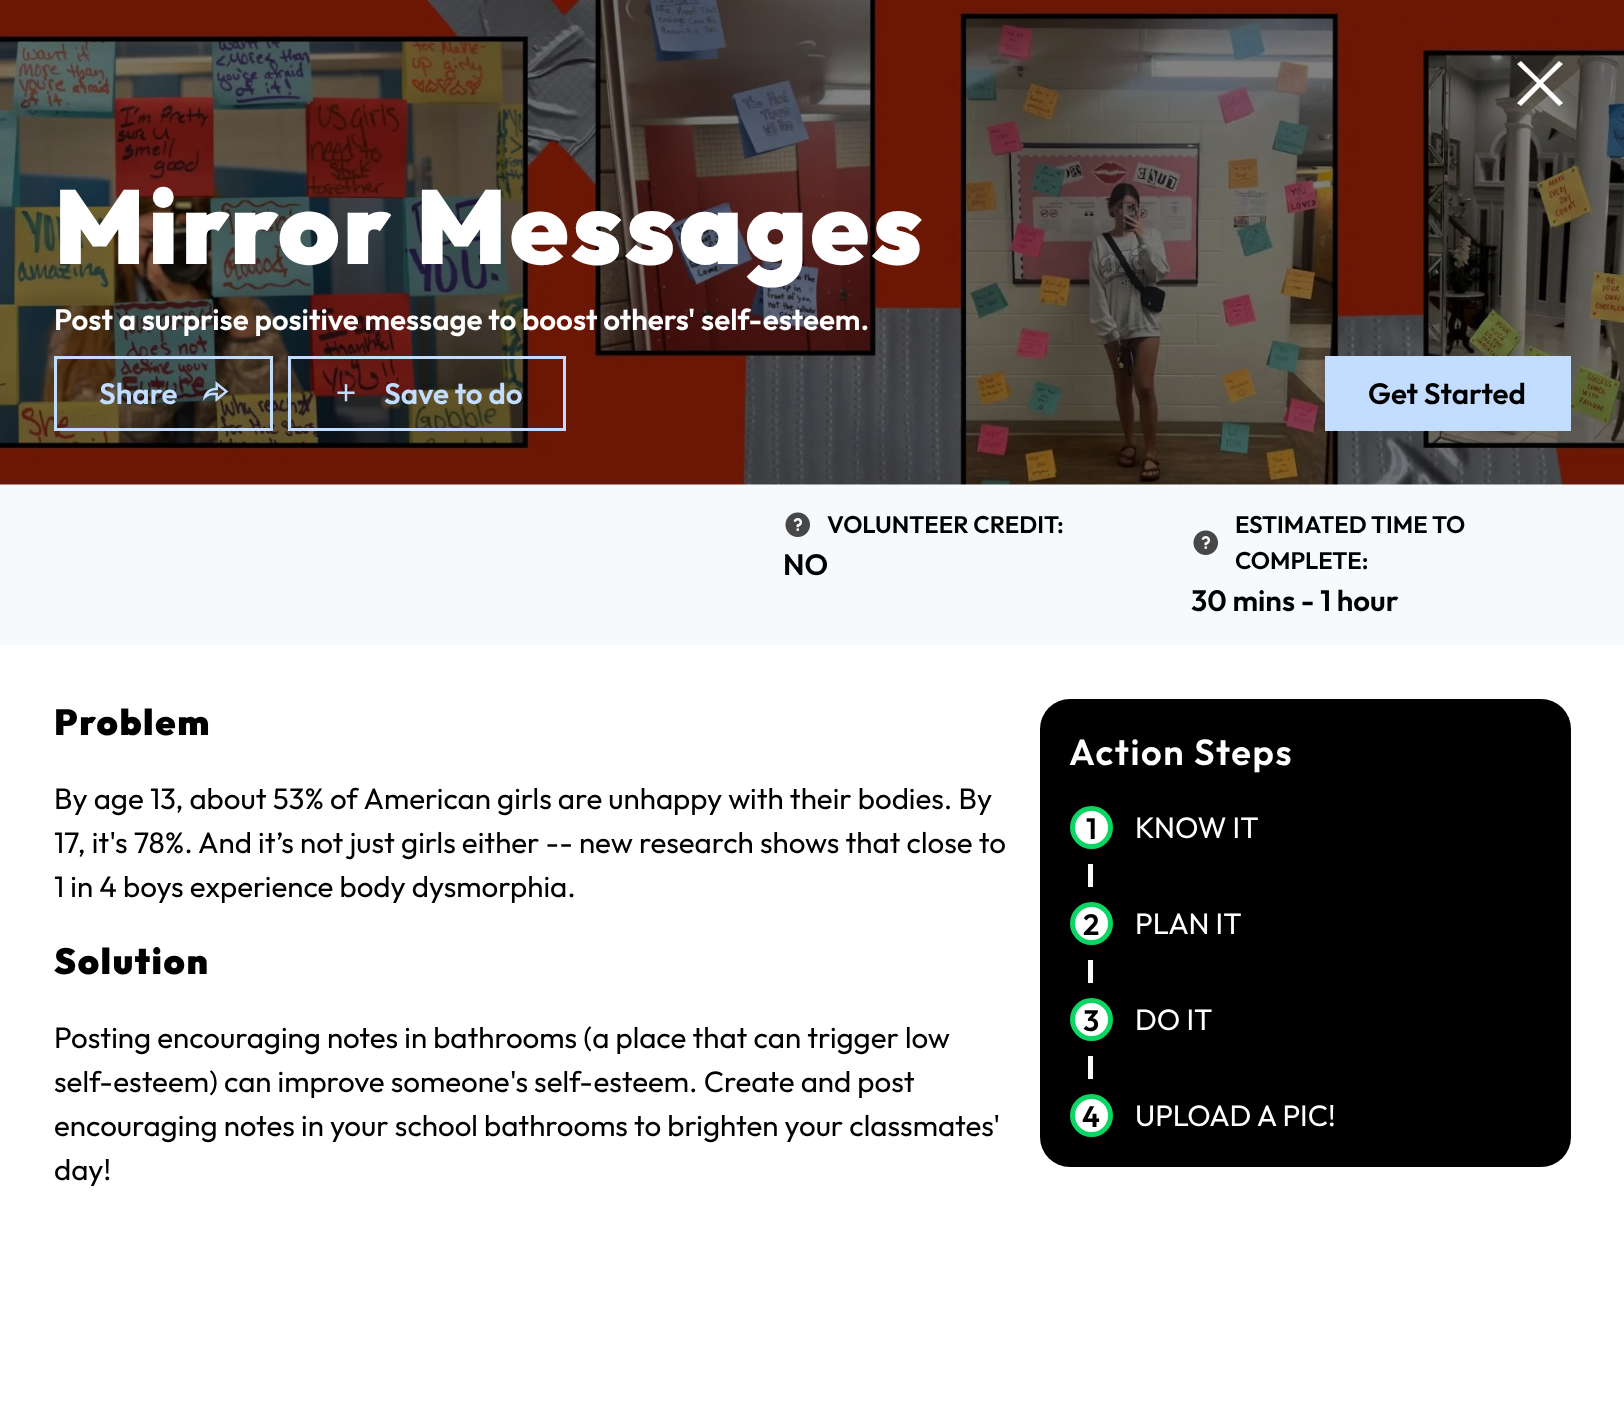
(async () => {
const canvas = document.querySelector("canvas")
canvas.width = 1624
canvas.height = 1425
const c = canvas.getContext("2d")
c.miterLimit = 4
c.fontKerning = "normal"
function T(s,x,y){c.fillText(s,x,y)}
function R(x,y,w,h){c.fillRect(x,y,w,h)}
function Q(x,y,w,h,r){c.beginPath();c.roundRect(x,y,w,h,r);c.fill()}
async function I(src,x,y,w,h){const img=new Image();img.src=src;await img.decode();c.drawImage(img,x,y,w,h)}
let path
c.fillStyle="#fff"
R(0,0,1624,1425)
await I("1.png",0,0,1624,485)
path = new Path2D("M1537 83l-20-19l4-3l19 19l19-19l4 3l-20 19l20 20l-4 3l-19-19l-19 19l-4-3z")
c.fill(path)
c.letterSpacing="3.1px"
c.font="900 104.25px Outfit"
T("Mirror Messages",54,264)
c.letterSpacing="0px"
c.font="600 29.5px Outfit"
T("Post a surprise positive message to boost others' self-esteem.",54,330)
c.strokeStyle="#c2ddff"
c.lineWidth=3
c.strokeRect(55.5,357.5,216,72)
c.fillStyle="#c2ddff"
T("Share",99,404)
await I("2.png",203,381,26,21)
c.strokeRect(289.5,357.5,275,72)
await I("3.png",337,384,18,18)
T("Save to do",384,404)
R(1325,356,246,75)
c.fillStyle="#000"
T("Get Started",1368,404)
c.fillStyle="#f7fafc"
R(0,485,1624,160)
await I("4.png",785,512,25,25)
c.font="600 24px Outfit"
c.fillStyle="#000"
T("VOLUNTEER CREDIT:",827,533)
c.font="600 29.5px Outfit"
T("NO",783,575)
await I("4.png",1193,530,25,25)
c.font="600 24px Outfit"
T("ESTIMATED TIME TO",1235,533)
T("COMPLETE:",1235,569)
c.font="600 29.5px Outfit"
T("30 mins - 1 hour",1191,611)
c.letterSpacing="1.6px"
c.font="900 36.25px Outfit"
T("Problem",54,735)
c.letterSpacing="0px"
c.font="29.5px Outfit"
T("By age 13, about 53% of American girls are unhappy with their bodies. By",54,809)
T("17, it's 78%. And it’s not just girls either -- new research shows that close to",54,853)
T("1 in 4 boys experience body dysmorphia.",54,897)
c.letterSpacing="1.6px"
c.font="900 36.25px Outfit"
T("Solution",54,974)
c.letterSpacing="0px"
c.font="29.5px Outfit"
T("Posting encouraging notes in bathrooms (a place that can trigger low",54,1048)
T("self-esteem) can improve someone's self-esteem. Create and post",54,1092)
T("encouraging notes in your school bathrooms to brighten your classmates'",54,1136)
T("day!",54,1180)
Q(1040,699,531,468,30)
c.letterSpacing="1.6px"
c.font="600 36.25px Outfit"
c.fillStyle="#fff"
T("Action Steps",1069,765)
c.beginPath()
c.arc(1091.5,827.5,19,0,7)
c.fill()
c.strokeStyle="#0ad663"
c.lineWidth=5
c.stroke()
c.letterSpacing="0px"
c.font="600 29.5px Outfit"
c.fillStyle="#000"
T("1",1086,839)
c.font="29.5px Outfit"
c.fillStyle="#fff"
T("KNOW IT",1135,838)
c.fillStyle="#f7fafc"
R(1088,864,5,23)
c.fillStyle="#fff"
c.beginPath()
c.arc(1091.5,923.5,19,0,7)
c.fill()
c.stroke()
c.font="600 29.5px Outfit"
c.fillStyle="#000"
T("2",1083,935)
c.font="29.5px Outfit"
c.fillStyle="#fff"
T("PLAN IT",1135,934)
c.fillStyle="#f7fafc"
R(1088,960,5,23)
c.fillStyle="#fff"
c.beginPath()
c.arc(1091.5,1019.5,19,0,7)
c.fill()
c.stroke()
c.font="600 29.5px Outfit"
c.fillStyle="#000"
T("3",1083,1031)
c.font="29.5px Outfit"
c.fillStyle="#fff"
T("DO IT",1135,1030)
c.fillStyle="#f7fafc"
R(1088,1056,5,23)
c.fillStyle="#fff"
c.beginPath()
c.arc(1091.5,1115.5,19,0,7)
c.fill()
c.stroke()
c.font="600 29.5px Outfit"
c.fillStyle="#000"
T("4",1082,1127)
c.font="29.5px Outfit"
c.fillStyle="#fff"
T("UPLOAD A PIC!",1135,1126)
})()
